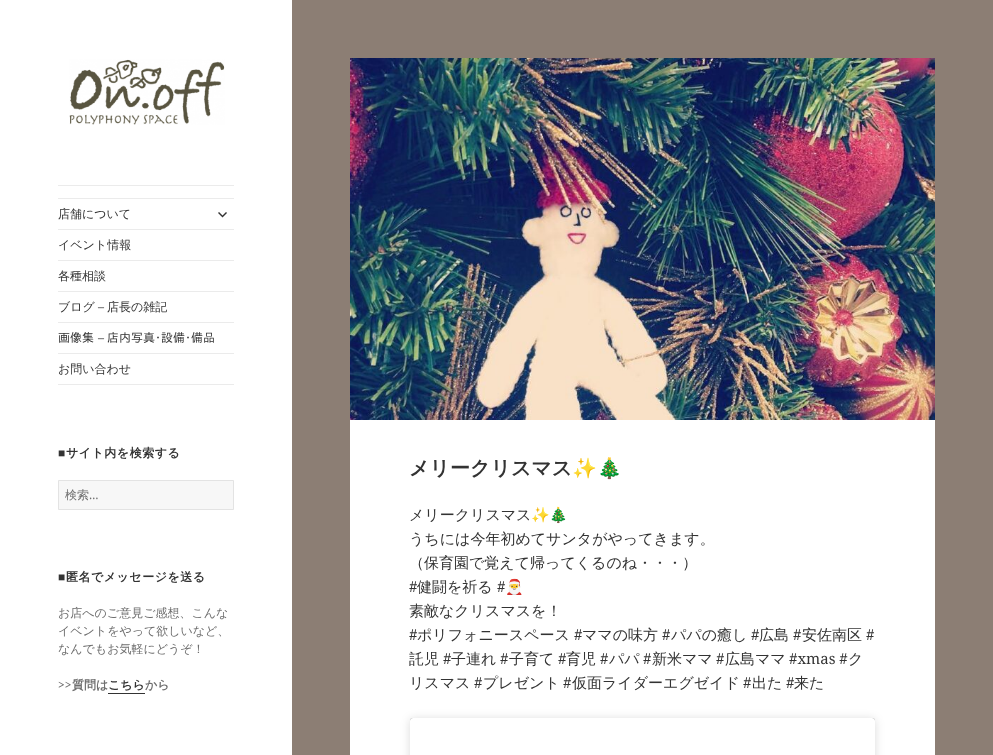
(async () => {
const canvas = document.querySelector("canvas")
canvas.width = 993
canvas.height = 755
const c = canvas.getContext("2d")
c.miterLimit = 4
c.fontKerning = "normal"
function T(s,x,y){c.fillText(s,x,y)}
function R(x,y,w,h){c.fillRect(x,y,w,h)}
function Q(x,y,w,h,r){c.beginPath();c.roundRect(x,y,w,h,r);c.fill()}
async function I(src,x,y,w,h){const img=new Image();img.src=src;await img.decode();c.drawImage(img,x,y,w,h)}
c.fillStyle="#8c7e74"
R(0,0,993,755)
c.fillStyle="#fff"
R(0,0,292,755)
await I("1.png",69,59,156,66)
c.fillStyle="#ebebeb"
R(58,185,176,1)
R(58,384,176,1)
R(58,198,176,1)
c.font="500 12px WenQuanYi Zen Hei"
c.fillStyle="#333"
T("店舗について",58,218)
await I("2.png",218,212,9,6)
c.fillStyle="#ebebeb"
R(58,229,176,1)
c.fillStyle="#333"
T("イベント情報",58,249)
c.fillStyle="#ebebeb"
R(58,260,176,1)
c.fillStyle="#333"
T("各種相談",58,280)
c.fillStyle="#ebebeb"
R(58,291,176,1)
c.fillStyle="#333"
T("ブログ",58,311)
c.font="12px Noto Serif"
T("–",98,311)
c.font="500 12px WenQuanYi Zen Hei"
T("店長の雑記",107,311)
c.fillStyle="#ebebeb"
R(58,322,176,1)
c.font="12px IPAPGothic"
c.fillStyle="#333"
T("画像集",58,342)
c.font="12px Noto Serif"
T("–",98,342)
c.font="12px IPAPGothic"
T("店内写真･設備･備品",107,342)
c.fillStyle="#ebebeb"
R(58,353,176,1)
c.font="500 12px WenQuanYi Zen Hei"
c.fillStyle="#333"
T("お問い合わせ",58,373)
c.letterSpacing="0.5px"
c.font="bold 12px Liberation Sans"
T("■",58,457)
c.font="bold 12px WenQuanYi Zen Hei"
T("サイト内を検索する",66,457)
c.fillStyle="#f7f7f7"
c.beginPath()
c.rect(58.5,480.5,175,29)
c.fill()
c.strokeStyle="#e3e3e3"
c.stroke()
c.letterSpacing="0px"
c.font="500 12px WenQuanYi Zen Hei"
c.fillStyle="#6e6e6e"
T("検索",65,499)
c.font="12px Noto Sans"
T("…",89,499)
c.letterSpacing="0.5px"
c.font="bold 12px Liberation Sans"
c.fillStyle="#333"
T("■",58,581)
c.font="bold 12px WenQuanYi Zen Hei"
T("匿名でメッセージを送る",66,581)
c.letterSpacing="0px"
c.font="500 12px WenQuanYi Zen Hei"
c.fillStyle="#6e6e6e"
T("お店へのご意見ご感想、こんな",58,617)
T("イベントをやって欲しいなど、",58,635)
T("なんでもお気軽にどうぞ！",58,653)
c.font="bold 12px Noto Serif"
T(">>",58,689)
c.font="bold 12px WenQuanYi Zen Hei"
T("質問は",72,689)
c.fillStyle="#333"
T("こちら",108,689)
R(108,693,37,1)
c.fillStyle="#6e6e6e"
T("から",145,689)
c.fillStyle="#fff"
R(350,420,585,335)
await I("3.png",350,58,585,362)
c.font="bold 20px WenQuanYi Zen Hei"
c.fillStyle="#333"
T("メリークリスマス",409,475)
c.font="bold 20px Noto Color Emoji"
T("✨🎄",572,475)
c.font="500 15px WenQuanYi Zen Hei"
T("メリークリスマス",409,520)
c.font="15px Noto Color Emoji"
T("✨🎄",531,520)
c.font="500 15px WenQuanYi Zen Hei"
T("うちには今年初めてサンタがやってきます。",409,544)
T("（保育園で覚えて帰ってくるのね・・・）",409,568)
c.font="15px Noto Serif"
T("#",409,592)
c.font="500 15px WenQuanYi Zen Hei"
T("健闘を祈る",417,592)
c.font="15px Noto Serif"
T("#",497,592)
c.font="15px Noto Color Emoji"
T("🎅",505,592)
c.font="500 15px WenQuanYi Zen Hei"
T("素敵なクリスマスを！",409,616)
c.font="15px Noto Serif"
T("#",409,640)
c.font="500 15px WenQuanYi Zen Hei"
T("ポリフォニースペース",417,640)
c.font="15px Noto Serif"
T("#",574,640)
c.font="500 15px WenQuanYi Zen Hei"
T("ママの味方",582,640)
c.font="15px Noto Serif"
T("#",662,640)
c.font="500 15px WenQuanYi Zen Hei"
T("パパの癒し",671,640)
c.font="15px Noto Serif"
T("#",751,640)
c.font="500 15px WenQuanYi Zen Hei"
T("広島",759,640)
c.font="15px Noto Serif"
T("#",793,640)
c.font="500 15px WenQuanYi Zen Hei"
T("安佐南区",802,640)
c.font="15px Noto Serif"
T("#",866,640)
c.font="500 15px WenQuanYi Zen Hei"
T("託児",409,664)
c.font="15px Noto Serif"
T("#",443,664)
c.font="500 15px WenQuanYi Zen Hei"
T("子連れ",451,664)
c.font="15px Noto Serif"
T("#",500,664)
c.font="500 15px WenQuanYi Zen Hei"
T("子育て",509,664)
c.font="15px Noto Serif"
T("#",558,664)
c.font="500 15px WenQuanYi Zen Hei"
T("育児",566,664)
c.font="15px Noto Serif"
T("#",600,664)
c.font="500 15px WenQuanYi Zen Hei"
T("パパ",609,664)
c.font="15px Noto Serif"
T("#",643,664)
c.font="500 15px WenQuanYi Zen Hei"
T("新米ママ",652,664)
c.font="15px Noto Serif"
T("#",716,664)
c.font="500 15px WenQuanYi Zen Hei"
T("広島ママ",725,664)
c.font="15px Noto Serif"
T("#xmas #",789,664)
c.font="500 15px WenQuanYi Zen Hei"
T("ク",848,664)
T("リスマス",409,688)
c.font="15px Noto Serif"
T("#",474,688)
c.font="500 15px WenQuanYi Zen Hei"
T("プレゼント",483,688)
c.font="15px Noto Serif"
T("#",563,688)
c.font="500 15px WenQuanYi Zen Hei"
T("仮面ライダーエグゼイド",572,688)
c.font="15px Noto Serif"
T("#",743,688)
c.font="500 15px WenQuanYi Zen Hei"
T("出た",752,688)
c.font="15px Noto Serif"
T("#",786,688)
c.font="500 15px WenQuanYi Zen Hei"
T("来た",794,688)
c.fillStyle="#00000026"
c.filter="blur(5px)"
c.beginPath()
c.roundRect(410,719,465,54,3)
c.fill()
c.filter="none"
c.fillStyle="#00000080"
c.filter="blur(0.5px)"
c.beginPath()
c.roundRect(410,718,465,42,3)
c.fill()
c.filter="none"
c.fillStyle="#fff"
Q(410,718,465,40,3)
})()
